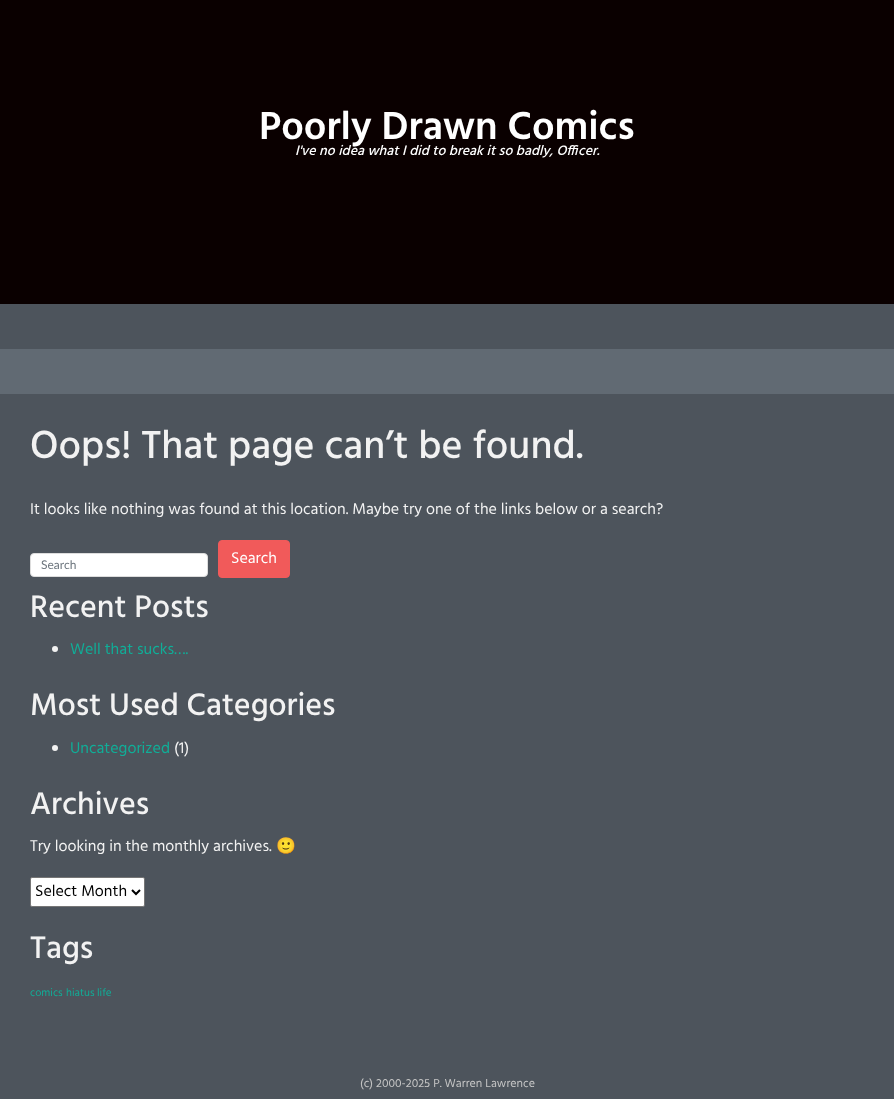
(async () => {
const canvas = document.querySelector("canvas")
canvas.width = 894
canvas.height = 1099
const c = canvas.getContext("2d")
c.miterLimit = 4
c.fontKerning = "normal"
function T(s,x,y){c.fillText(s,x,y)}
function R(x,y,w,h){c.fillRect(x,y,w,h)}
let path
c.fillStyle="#616a73"
R(0,0,894,1099)
c.fillStyle="#0a0000"
R(0,0,894,304)
c.font="600 40px Hind"
c.fillStyle="#fff"
T("Poorly Drawn Comics",259,139)
c.font="italic 500 14px Hind"
T("I've no idea what I did to break it so badly, Officer.",295,155)
c.fillStyle="#4d545c"
R(0,304,894,45)
R(0,394,894,705)
c.font="500 40px Hind"
c.fillStyle="#f2f2f2"
T("Oops! That page can’t be found.",30,458)
c.font="16px Hind"
T("It looks like nothing was found at this location. Maybe try one of the links below or a search?",30,514)
c.fillStyle="#f15a5a"
c.beginPath()
c.roundRect(218.5,540.5,71,37,3.5)
c.fill()
c.strokeStyle="#f15a5a"
c.stroke()
c.fillStyle="#fff"
T("Search",231,563)
c.beginPath()
c.roundRect(30.5,553.5,177,23,3.5)
c.fill()
c.strokeStyle="#ddd"
c.stroke()
c.font="12px Lato"
c.fillStyle="#6c757d"
T("Search",41,569)
c.font="500 32px Hind"
c.fillStyle="#f2f2f2"
T("Recent Posts",30,617)
c.beginPath()
c.arc(55,649,3,0,7)
c.fill()
c.font="16px Hind"
c.fillStyle="#10ae98"
T("Well that sucks….",70,654)
c.font="500 32px Hind"
c.fillStyle="#f2f2f2"
T("Most Used Categories",30,715)
c.beginPath()
c.arc(55,748,3,0,7)
c.fill()
c.font="16px Hind"
c.fillStyle="#10ae98"
T("Uncategorized",70,753)
c.fillStyle="#f2f2f2"
T("(1)",174,753)
c.font="500 32px Hind"
T("Archives",30,814)
c.font="16px Hind"
T("Try looking in the monthly archives.",30,851)
c.font="16px Noto Color Emoji"
T("🙂",276,851)
c.fillStyle="#fff"
c.beginPath()
c.roundRect(30.5,877.5,114,29,1.5)
c.fill()
c.strokeStyle="#767676"
c.stroke()
path = new Path2D("M132 890l4 4l4-4")
c.strokeStyle="#000"
c.lineWidth=2
c.stroke(path)
c.font="16px Hind"
c.fillStyle="#000"
T("Select Month",35,896)
c.font="500 32px Hind"
c.fillStyle="#f2f2f2"
T("Tags",30,958)
c.font="11px Hind"
c.fillStyle="#10ae98"
T("comics",30,996)
T("hiatus",66,996)
T("life",97,996)
c.font="12px Hind"
c.fillStyle="#c5c5c5"
T("(c) 2000-2025 P. Warren Lawrence",360,1087)
})()
